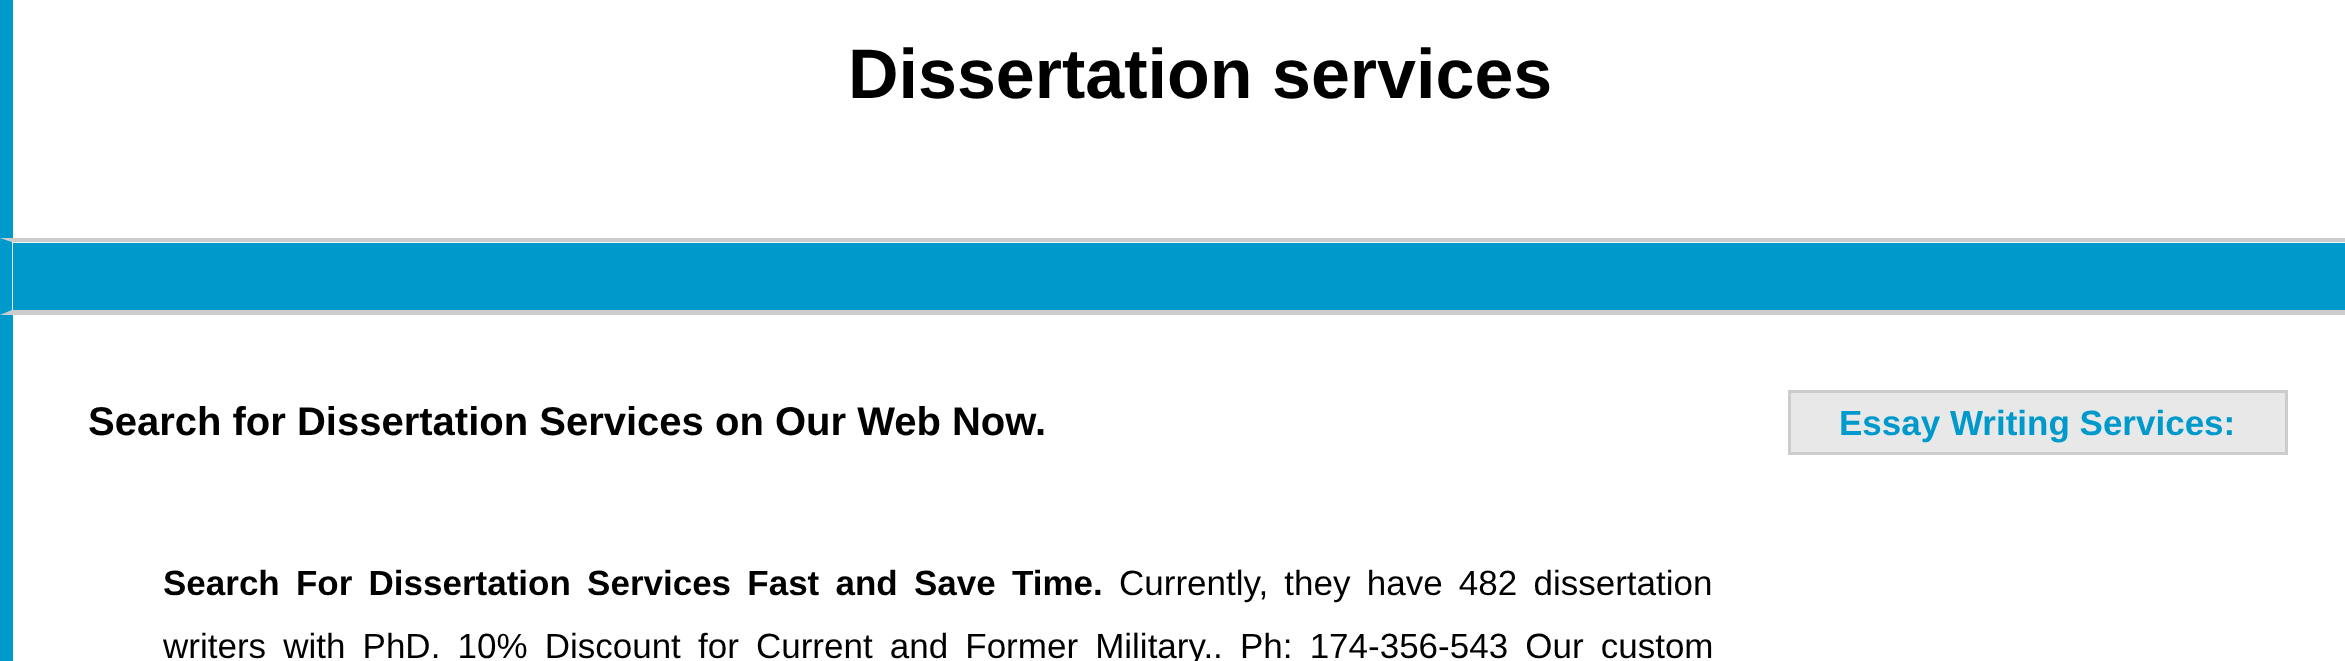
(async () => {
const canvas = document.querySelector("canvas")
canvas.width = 2345
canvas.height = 661
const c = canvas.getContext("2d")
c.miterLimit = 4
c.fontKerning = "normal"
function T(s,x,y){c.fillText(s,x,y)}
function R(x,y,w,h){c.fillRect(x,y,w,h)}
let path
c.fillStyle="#eef7ff"
R(0,0,2345,661)
c.fillStyle="#fff"
R(13,0,2332,238)
c.fillStyle="#09c"
R(0,0,13,238)
c.font="bold 70px Liberation Sans"
c.fillStyle="#000"
T("Dissertation services",848,98)
c.fillStyle="#09c"
R(13,243,2332,67)
c.fillStyle="#ccc"
path = new Path2D("M0 238h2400l-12 4h-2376z")
c.fill(path)
path = new Path2D("M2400 315h-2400l12-5h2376z")
c.fill(path)
c.fillStyle="#09c"
path = new Path2D("M0 315v-77l12 4v68z")
c.fill(path)
c.fillStyle="#fff"
R(13,315,2332,346)
c.fillStyle="#09c"
R(0,315,13,346)
c.font="bold 40px Liberation Sans"
c.fillStyle="#000"
T("Search for Dissertation Services on Our Web Now.",88,435)
c.wordSpacing="6.5px"
c.font="bold 35px Liberation Sans"
T("Search For Dissertation Services Fast and Save Time.",163,595)
c.font="35px Liberation Sans"
T("Currently, they have 482 dissertation",1119,595)
c.wordSpacing="7.4px"
T("writers with PhD. 10% Discount for Current and Former Military.. Ph: 174-356-543 Our custom",163,658)
c.fillStyle="#e8e8e8"
c.beginPath()
c.rect(1789.5,391.5,497,62)
c.fill()
c.strokeStyle="#ccc"
c.lineWidth=3
c.stroke()
c.wordSpacing="0px"
c.font="bold 35px Liberation Sans"
c.fillStyle="#09c"
T("Essay Writing Services:",1839,435)
})()
